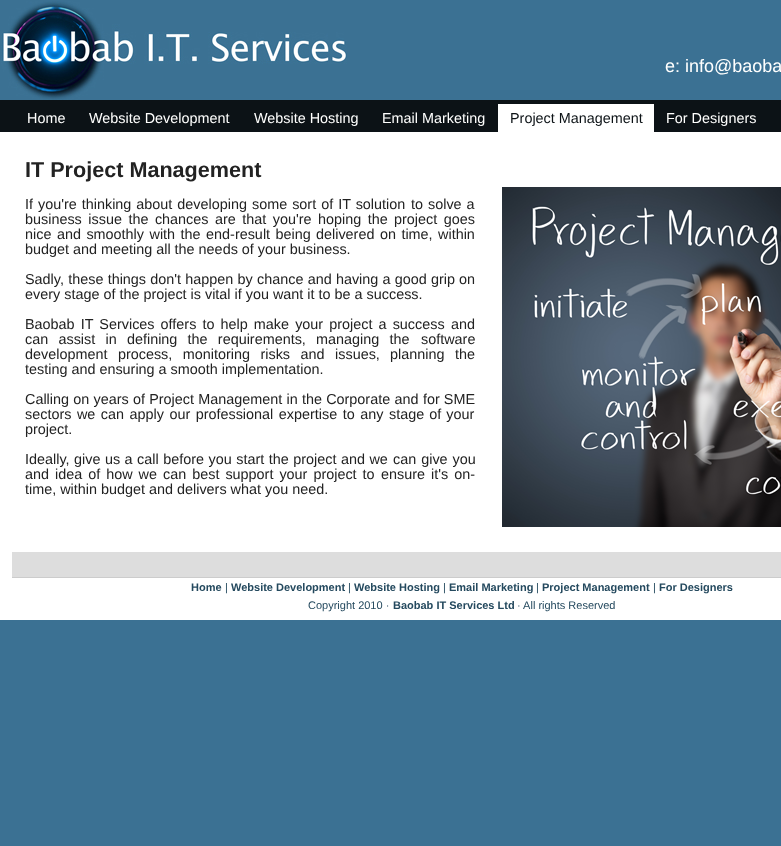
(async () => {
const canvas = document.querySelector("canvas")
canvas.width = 781
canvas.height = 846
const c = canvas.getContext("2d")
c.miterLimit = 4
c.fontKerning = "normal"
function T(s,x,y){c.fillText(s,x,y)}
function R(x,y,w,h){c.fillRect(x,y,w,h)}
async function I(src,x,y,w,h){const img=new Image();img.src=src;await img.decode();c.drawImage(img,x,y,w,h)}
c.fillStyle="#3b7193"
R(0,0,781,846)
await I("1.png",1,1,346,99)
c.font="18px Liberation Sans"
c.fillStyle="#fffffe"
T("e: info@baoba",665,72)
c.fillStyle="#0c1216"
R(0,100,781,32)
c.font="14.4px Liberation Sans"
c.fillStyle="#fffffe"
T("Home",27,123)
T("Website Development",89,123)
T("Website Hosting",254,123)
T("Email Marketing",382,123)
c.fillStyle="#fff"
R(498,104,156,28)
c.fillStyle="#0c1216"
T("Project Management",510,123)
c.fillStyle="#fffffe"
T("For Designers",666,123)
c.fillStyle="#fff"
R(0,132,781,488)
c.font="bold 21.6px Liberation Sans"
c.fillStyle="#222"
T("IT Project Management",25,177)
c.wordSpacing="1px"
c.font="14.4px Liberation Sans"
T("If you're thinking about developing some sort of IT solution",25,209)
T("to solve a",411,209)
c.wordSpacing="2.5px"
T("business issue the chances are that you're hoping the",25,224)
T("project goes",394,224)
c.wordSpacing="1.5px"
T("nice and smoothly with the end-result being",25,239)
T("delivered on time, within",316,239)
c.wordSpacing="0px"
T("budget and meeting all the needs of your business.",25,254)
c.wordSpacing="0.25px"
T("Sadly, these things don't happen by chance and having a good",25,284)
c.wordSpacing="0px"
T("grip on",431,284)
T("every stage of the project is vital if you want it to be a success.",25,299)
c.wordSpacing="2.1px"
T("Baobab IT Services offers to help make your project a success",25,329)
c.wordSpacing="0px"
T("and",451,329)
c.wordSpacing="6.25px"
T("can assist in defining the requirements, managing the",25,344)
c.wordSpacing="0px"
T("software",421,344)
c.wordSpacing="6.5px"
T("development process, monitoring risks and issues,",25,359)
T("planning the",390,359)
c.wordSpacing="0px"
T("testing and ensuring a smooth implementation.",25,374)
c.wordSpacing="0.25px"
T("Calling on years of Project Management in the Corporate and",25,404)
c.wordSpacing="0px"
T("for SME",423,404)
c.wordSpacing="1.5px"
T("sectors we can apply our professional expertise to any",25,419)
c.wordSpacing="1px"
T("stage of your",389,419)
c.wordSpacing="0px"
T("project.",25,434)
c.wordSpacing="0.5px"
T("Ideally, give us a call before you start the project and we",25,464)
c.wordSpacing="1px"
T("can give you",393,464)
c.wordSpacing="2px"
T("and idea of how we can best support your project to",25,479)
T("ensure it's on-",381,479)
c.wordSpacing="0px"
T("time, within budget and delivers what you need.",25,494)
await I("2.png",502,187,279,340)
c.fillStyle="#ddd"
R(12,552,769,25)
c.fillStyle="#ccc"
R(12,577,769,1)
c.font="bold 11px Liberation Sans"
c.fillStyle="#24495e"
T("Home",191,591)
c.font="11px Liberation Sans"
T("|",225,591)
c.font="bold 11px Liberation Sans"
T("Website Development",231,591)
c.font="11px Liberation Sans"
T("|",348,591)
c.font="bold 11px Liberation Sans"
T("Website Hosting",354,591)
c.font="11px Liberation Sans"
T("|",443,591)
c.font="bold 11px Liberation Sans"
T("Email Marketing",449,591)
c.font="11px Liberation Sans"
T("|",536,591)
c.font="bold 11px Liberation Sans"
T("Project Management",542,591)
c.font="11px Liberation Sans"
T("|",653,591)
c.font="bold 11px Liberation Sans"
T("For Designers",659,591)
c.font="11px Liberation Sans"
T("Copyright 2010 ·",308,609)
c.font="bold 11px Liberation Sans"
T("Baobab IT Services Ltd",393,609)
c.font="11px Liberation Sans"
T("· All rights Reserved",517,609)
})()
